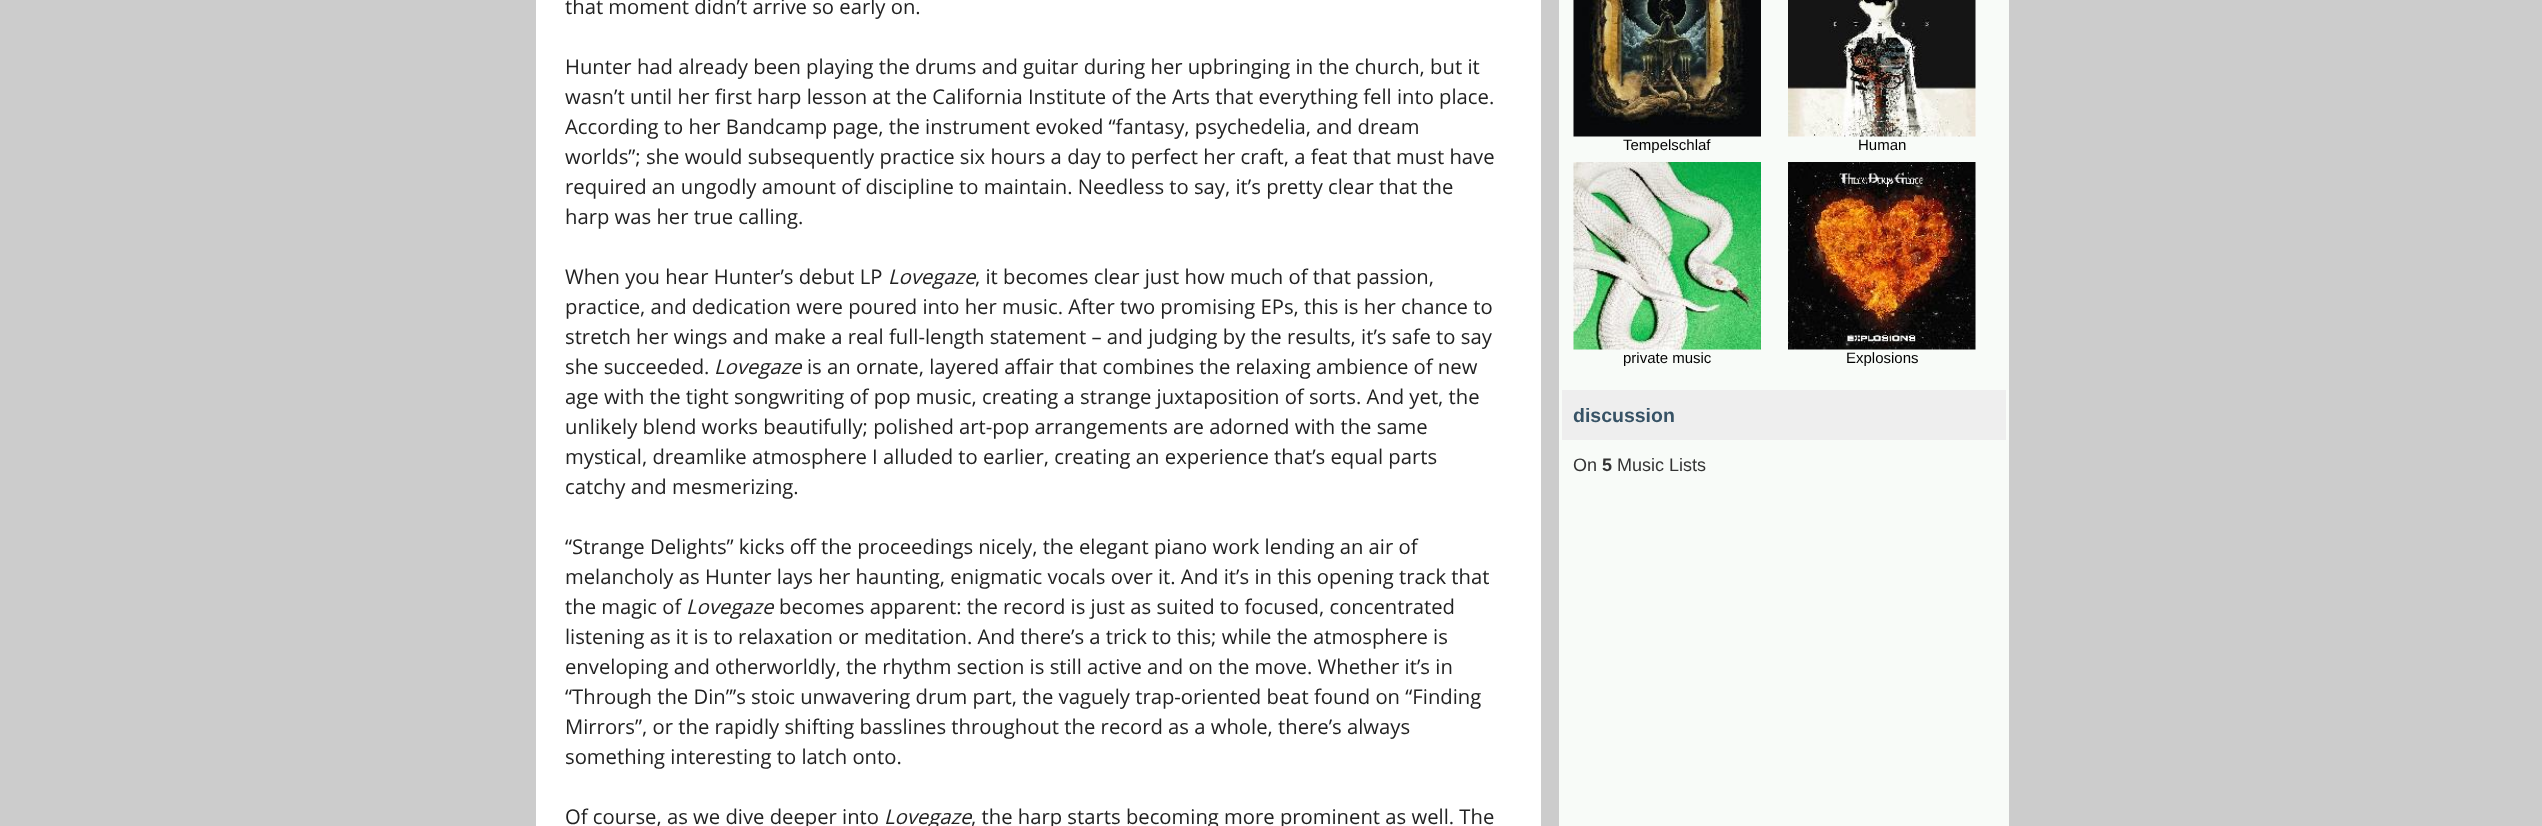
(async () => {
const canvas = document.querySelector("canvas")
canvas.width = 2542
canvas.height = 826
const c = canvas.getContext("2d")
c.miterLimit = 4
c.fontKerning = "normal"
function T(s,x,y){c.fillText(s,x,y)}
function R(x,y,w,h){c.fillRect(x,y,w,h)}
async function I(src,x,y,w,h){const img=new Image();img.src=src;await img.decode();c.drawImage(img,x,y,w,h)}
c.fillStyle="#ccc"
R(0,0,2542,826)
c.fillStyle="#fff"
R(536,0,1005,826)
c.font="20.25px Open Sans"
c.fillStyle="#222"
T("that moment didn’t arrive so early on.",565,14)
T("Hunter had already been playing the drums and guitar during her upbringing in the church, but it",565,74)
T("wasn’t until her first harp lesson at the California Institute of the Arts that everything fell into place.",565,104)
T("According to her Bandcamp page, the instrument evoked “fantasy, psychedelia, and dream",565,134)
T("worlds”; she would subsequently practice six hours a day to perfect her craft, a feat that must have",565,164)
T("required an ungodly amount of discipline to maintain. Needless to say, it’s pretty clear that the",565,194)
T("harp was her true calling.",565,224)
T("When you hear Hunter’s debut LP",565,284)
c.font="italic 20.25px Open Sans"
T("Lovegaze",888,284)
c.font="20.25px Open Sans"
T(", it becomes clear just how much of that passion,",975,284)
T("practice, and dedication were poured into her music. After two promising EPs, this is her chance to",565,314)
T("stretch her wings and make a real full-length statement – and judging by the results, it’s safe to say",565,344)
T("she succeeded.",565,374)
c.font="italic 20.25px Open Sans"
T("Lovegaze",714,374)
c.font="20.25px Open Sans"
T("is an ornate, layered affair that combines the relaxing ambience of new",807,374)
T("age with the tight songwriting of pop music, creating a strange juxtaposition of sorts. And yet, the",565,404)
T("unlikely blend works beautifully; polished art-pop arrangements are adorned with the same",565,434)
T("mystical, dreamlike atmosphere I alluded to earlier, creating an experience that’s equal parts",565,464)
T("catchy and mesmerizing.",565,494)
T("“Strange Delights” kicks off the proceedings nicely, the elegant piano work lending an air of",565,554)
T("melancholy as Hunter lays her haunting, enigmatic vocals over it. And it’s in this opening track that",565,584)
T("the magic of",565,614)
c.font="italic 20.25px Open Sans"
T("Lovegaze",686,614)
c.font="20.25px Open Sans"
T("becomes apparent: the record is just as suited to focused, concentrated",779,614)
T("listening as it is to relaxation or meditation. And there’s a trick to this; while the atmosphere is",565,644)
T("enveloping and otherworldly, the rhythm section is still active and on the move. Whether it’s in",565,674)
T("“Through the Din”’s stoic unwavering drum part, the vaguely trap-oriented beat found on “Finding",565,704)
T("Mirrors”, or the rapidly shifting basslines throughout the record as a whole, there’s always",565,734)
T("something interesting to latch onto.",565,764)
T("Of course, as we dive deeper into",565,824)
c.font="italic 20.25px Open Sans"
T("Lovegaze",884,824)
c.font="20.25px Open Sans"
T(", the harp starts becoming more prominent as well. The",971,824)
c.fillStyle="#f8fbf8"
R(1559,0,450,826)
await I("1.png",1573,0,188,137)
c.font="15px Liberation Sans"
c.fillStyle="#000"
T("Tempelschlaf",1623,150)
await I("2.png",1788,0,188,137)
T("Human",1858,150)
await I("3.png",1573,162,188,188)
T("private music",1623,363)
await I("4.png",1788,162,188,188)
T("Explosions",1846,363)
c.fillStyle="#eee"
R(1562,390,444,50)
c.font="bold 19.5px Liberation Sans"
c.fillStyle="#365265"
T("discussion",1573,422)
c.font="18px Liberation Sans"
c.fillStyle="#333"
T("On",1573,471)
c.font="bold 18px Liberation Sans"
T("5",1602,471)
c.font="18px Liberation Sans"
T("Music Lists",1617,471)
})()
